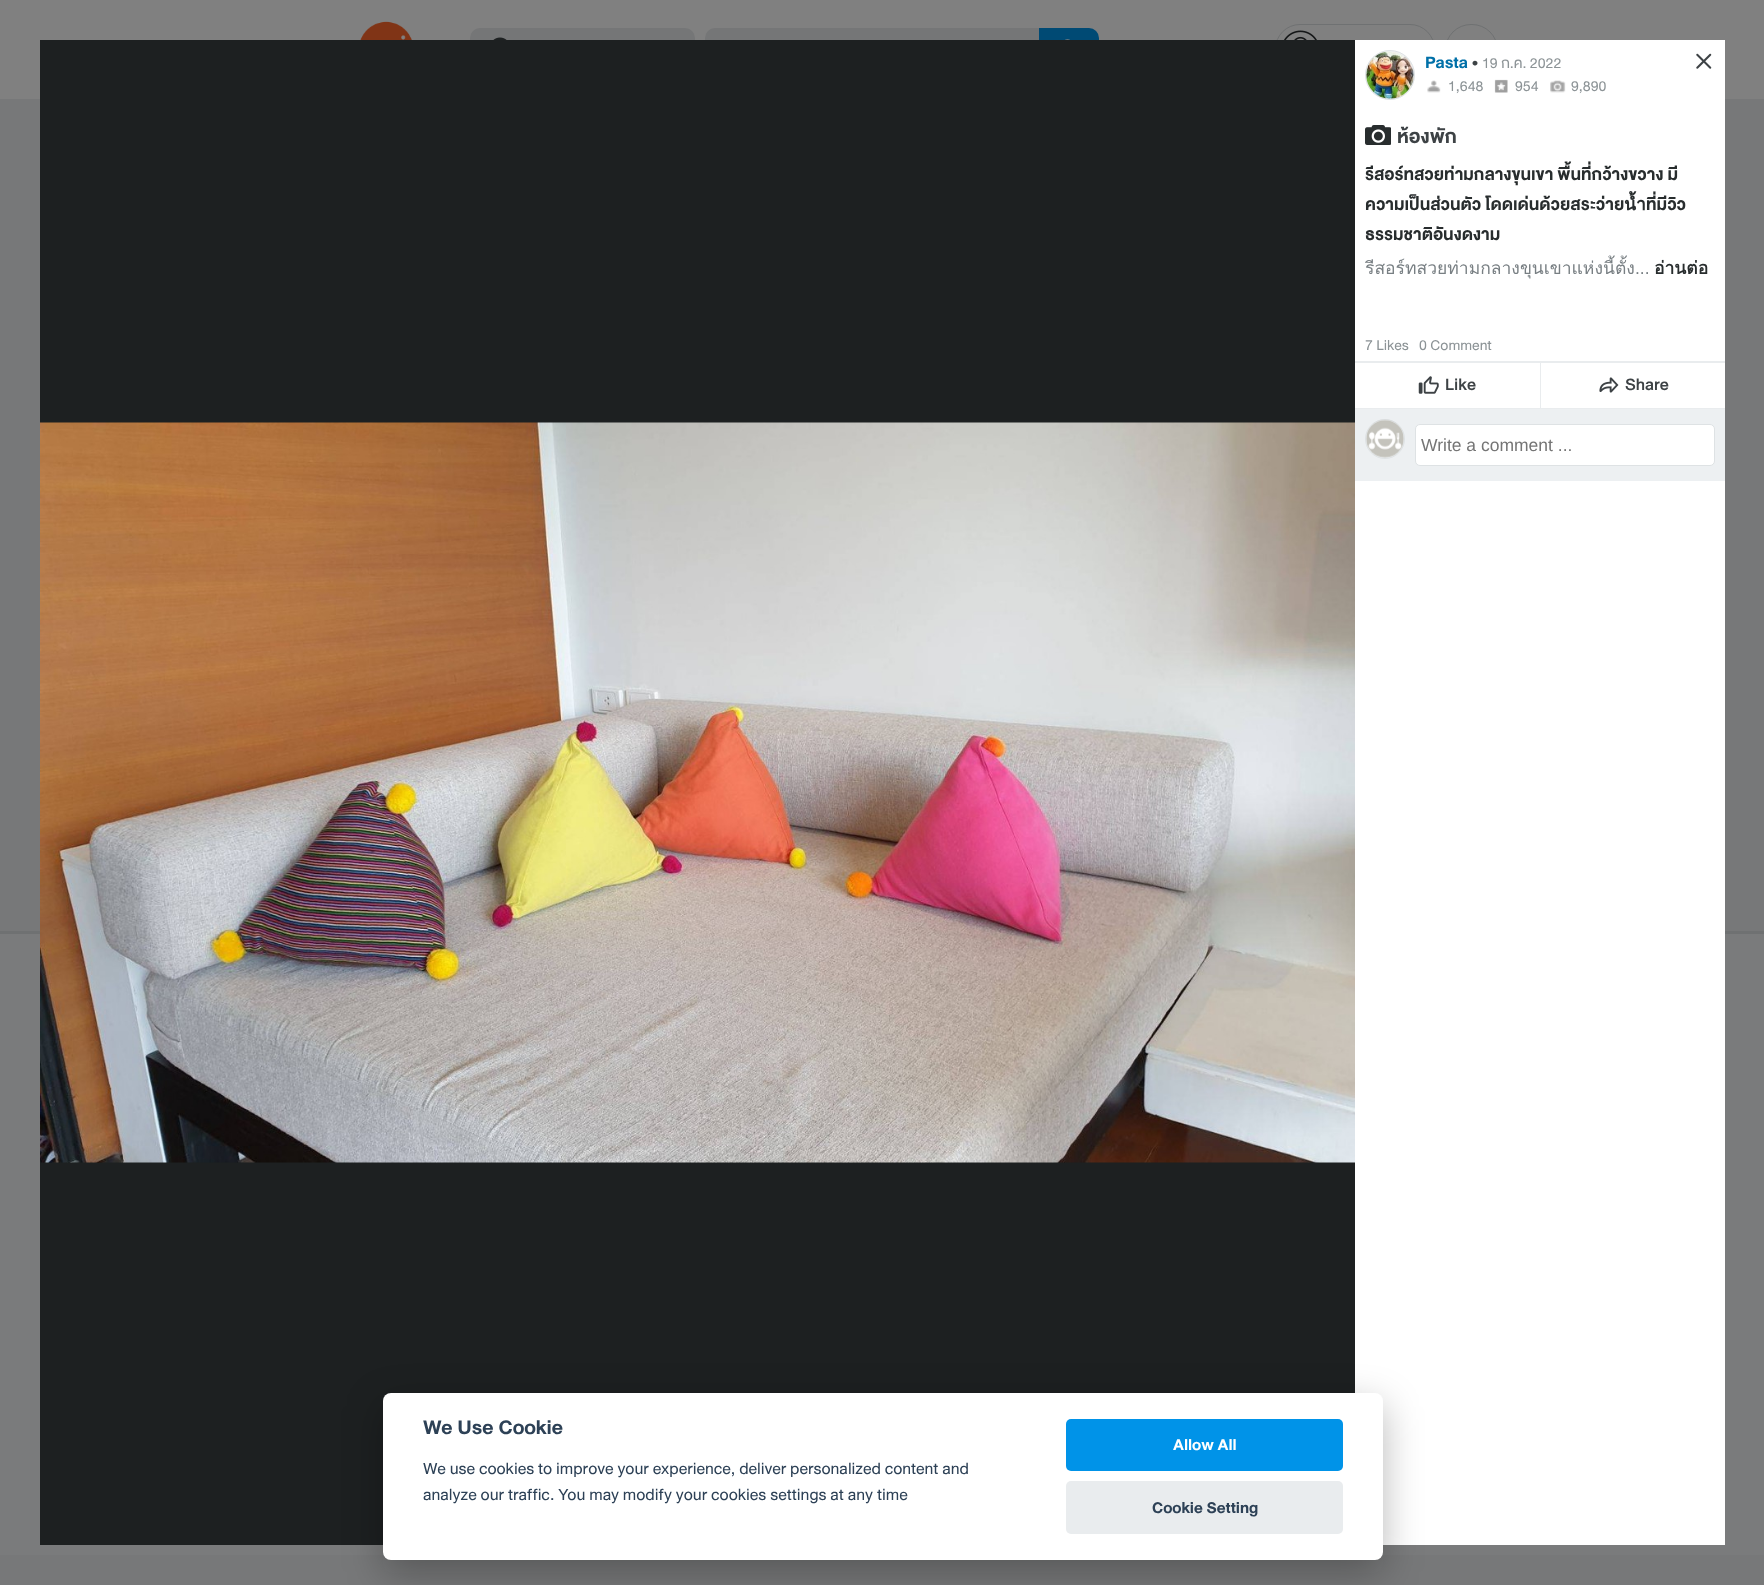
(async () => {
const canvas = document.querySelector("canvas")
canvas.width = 1764
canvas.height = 1585
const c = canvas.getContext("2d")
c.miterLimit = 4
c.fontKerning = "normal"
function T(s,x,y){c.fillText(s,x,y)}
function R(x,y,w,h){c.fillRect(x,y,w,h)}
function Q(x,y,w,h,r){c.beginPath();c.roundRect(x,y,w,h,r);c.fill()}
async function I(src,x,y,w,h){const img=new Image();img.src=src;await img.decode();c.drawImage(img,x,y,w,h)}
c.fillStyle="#777879"
R(0,0,1764,1585)
c.fillStyle="#808080"
R(0,0,1764,99)
await I("1.png",360,21,52,19)
c.fillStyle="#757677"
Q(470,28,225,45,10)
await I("2.png",493,37,14,3)
c.beginPath()
c.roundRect(705,28,334,45,[10,0,0,10])
c.fill()
c.fillStyle="#004a74"
c.beginPath()
c.roundRect(1039,28,60,45,[0,10,10,0])
c.fill()
await I("3.png",1065,39,5,1)
c.beginPath()
c.roundRect(1275.5,24.5,159,51,24.5)
c.strokeStyle="#6f7172"
c.stroke()
await I("4.png",1284,30,33,10)
c.beginPath()
c.roundRect(1445.5,24.5,52,51,25.5)
c.stroke()
c.fillStyle="#7a7b7c"
R(0,934,1764,621)
c.fillStyle="#6f7172"
R(0,931,1764,3)
c.fillStyle="#fff"
R(1355,40,370,1505)
c.fillStyle="#1d2021"
R(40,40,1315,1505)
await I("5.png",40,422,1315,741)
await I("6.png",1696,53,16,16)
c.fillStyle="#edf0f2"
c.beginPath()
c.arc(1390,75,24.5,0,7)
c.fill()
c.strokeStyle="#dee2e4"
c.stroke()
await I("7.png",1366,51,48,48)
c.font="bold 17.5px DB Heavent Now"
c.fillStyle="#0070a8"
T("Pasta",1425,68)
c.font="17.5px DB Heavent Now"
c.fillStyle="#3d4245"
T("•",1472,68)
c.font="15px DB Heavent Now"
c.fillStyle="#8c9396"
T("19 ก.ค. 2022",1482,68)
await I("8.png",1427,80,14,13)
T("1,648",1448,91)
await I("9.png",1494,79,14,14)
T("954",1515,91)
await I("10.png",1550,80,16,13)
T("9,890",1571,91)
c.font="bold 20px DB Heavent Now"
c.fillStyle="#3d4245"
T("ห้องพัก",1397,143)
await I("11.png",1365,125,26,20)
c.font="bold 17.5px DB Heavent Now"
c.fillStyle="#282d2e"
T("รีสอร์ทสวยท่ามกลางขุนเขา พื้นที่กว้างขวาง มี",1365,180)
T("ความเป็นส่วนตัว โดดเด่นด้วยสระว่ายน้ำที่มีวิว",1365,210)
T("ธรรมชาติอันงดงาม",1365,240)
c.font="17.5px Loma"
c.fillStyle="#787f83"
T("รีสอร์ทสวยท่ามกลางขุนเขาแห่งนี้ตั้ง",1365,274)
c.font="17.5px Liberation Sans"
T("...",1635,274)
c.font="bold 17.5px Loma"
c.fillStyle="#282d2e"
T("อ่านต่อ",1654,274)
c.font="15px DB Heavent Now"
c.fillStyle="#8c9396"
T("7 Likes",1365,350)
T("0 Comment",1419,350)
c.fillStyle="#e9ecee"
R(1355,361,370,48)
c.fillStyle="#fff"
R(1355,363,185,45)
await I("12.png",1418,376,21,18)
c.font="500 17.5px DB Heavent Now"
c.fillStyle="#3d4245"
T("Like",1445,390)
c.fillStyle="#fff"
R(1541,363,184,45)
await I("13.png",1599,377,20,16)
c.fillStyle="#3d4245"
T("Share",1625,390)
c.fillStyle="#edf0f2"
R(1355,409,370,72)
c.beginPath()
c.arc(1385,439,19.5,0,7)
c.stroke()
await I("14.png",1366,419,38,39)
c.fillStyle="#fff"
c.beginPath()
c.roundRect(1415.5,424.5,299,41,4.5)
c.fill()
c.stroke()
c.font="17.5px Liberation Sans"
c.fillStyle="#757575"
T("Write a comment ...",1421,451)
c.fillStyle="#02020347"
c.filter="blur(19px)"
c.beginPath()
c.roundRect(383,1405,1000,168,8)
c.fill()
c.filter="none"
c.fillStyle="#fff"
Q(383,1393,1000,167,8)
c.font="bold 21px DB Heavent Now"
c.fillStyle="#2d4156"
T("We Use Cookie",423,1434)
c.font="17px DB Heavent Now"
T("We use cookies to improve your experience, deliver personalized content and",423,1474)
T("analyze our traffic. You may modify your cookies settings at any time",423,1500)
c.fillStyle="#0093e8"
Q(1066,1419,277,52,5)
c.font="bold 16.5px DB Heavent Now"
c.fillStyle="#fff"
T("Allow All",1173,1450)
c.fillStyle="#e9ecee"
Q(1066,1481,277,53,5)
c.fillStyle="#2d4156"
T("Cookie Setting",1152,1513)
})()
